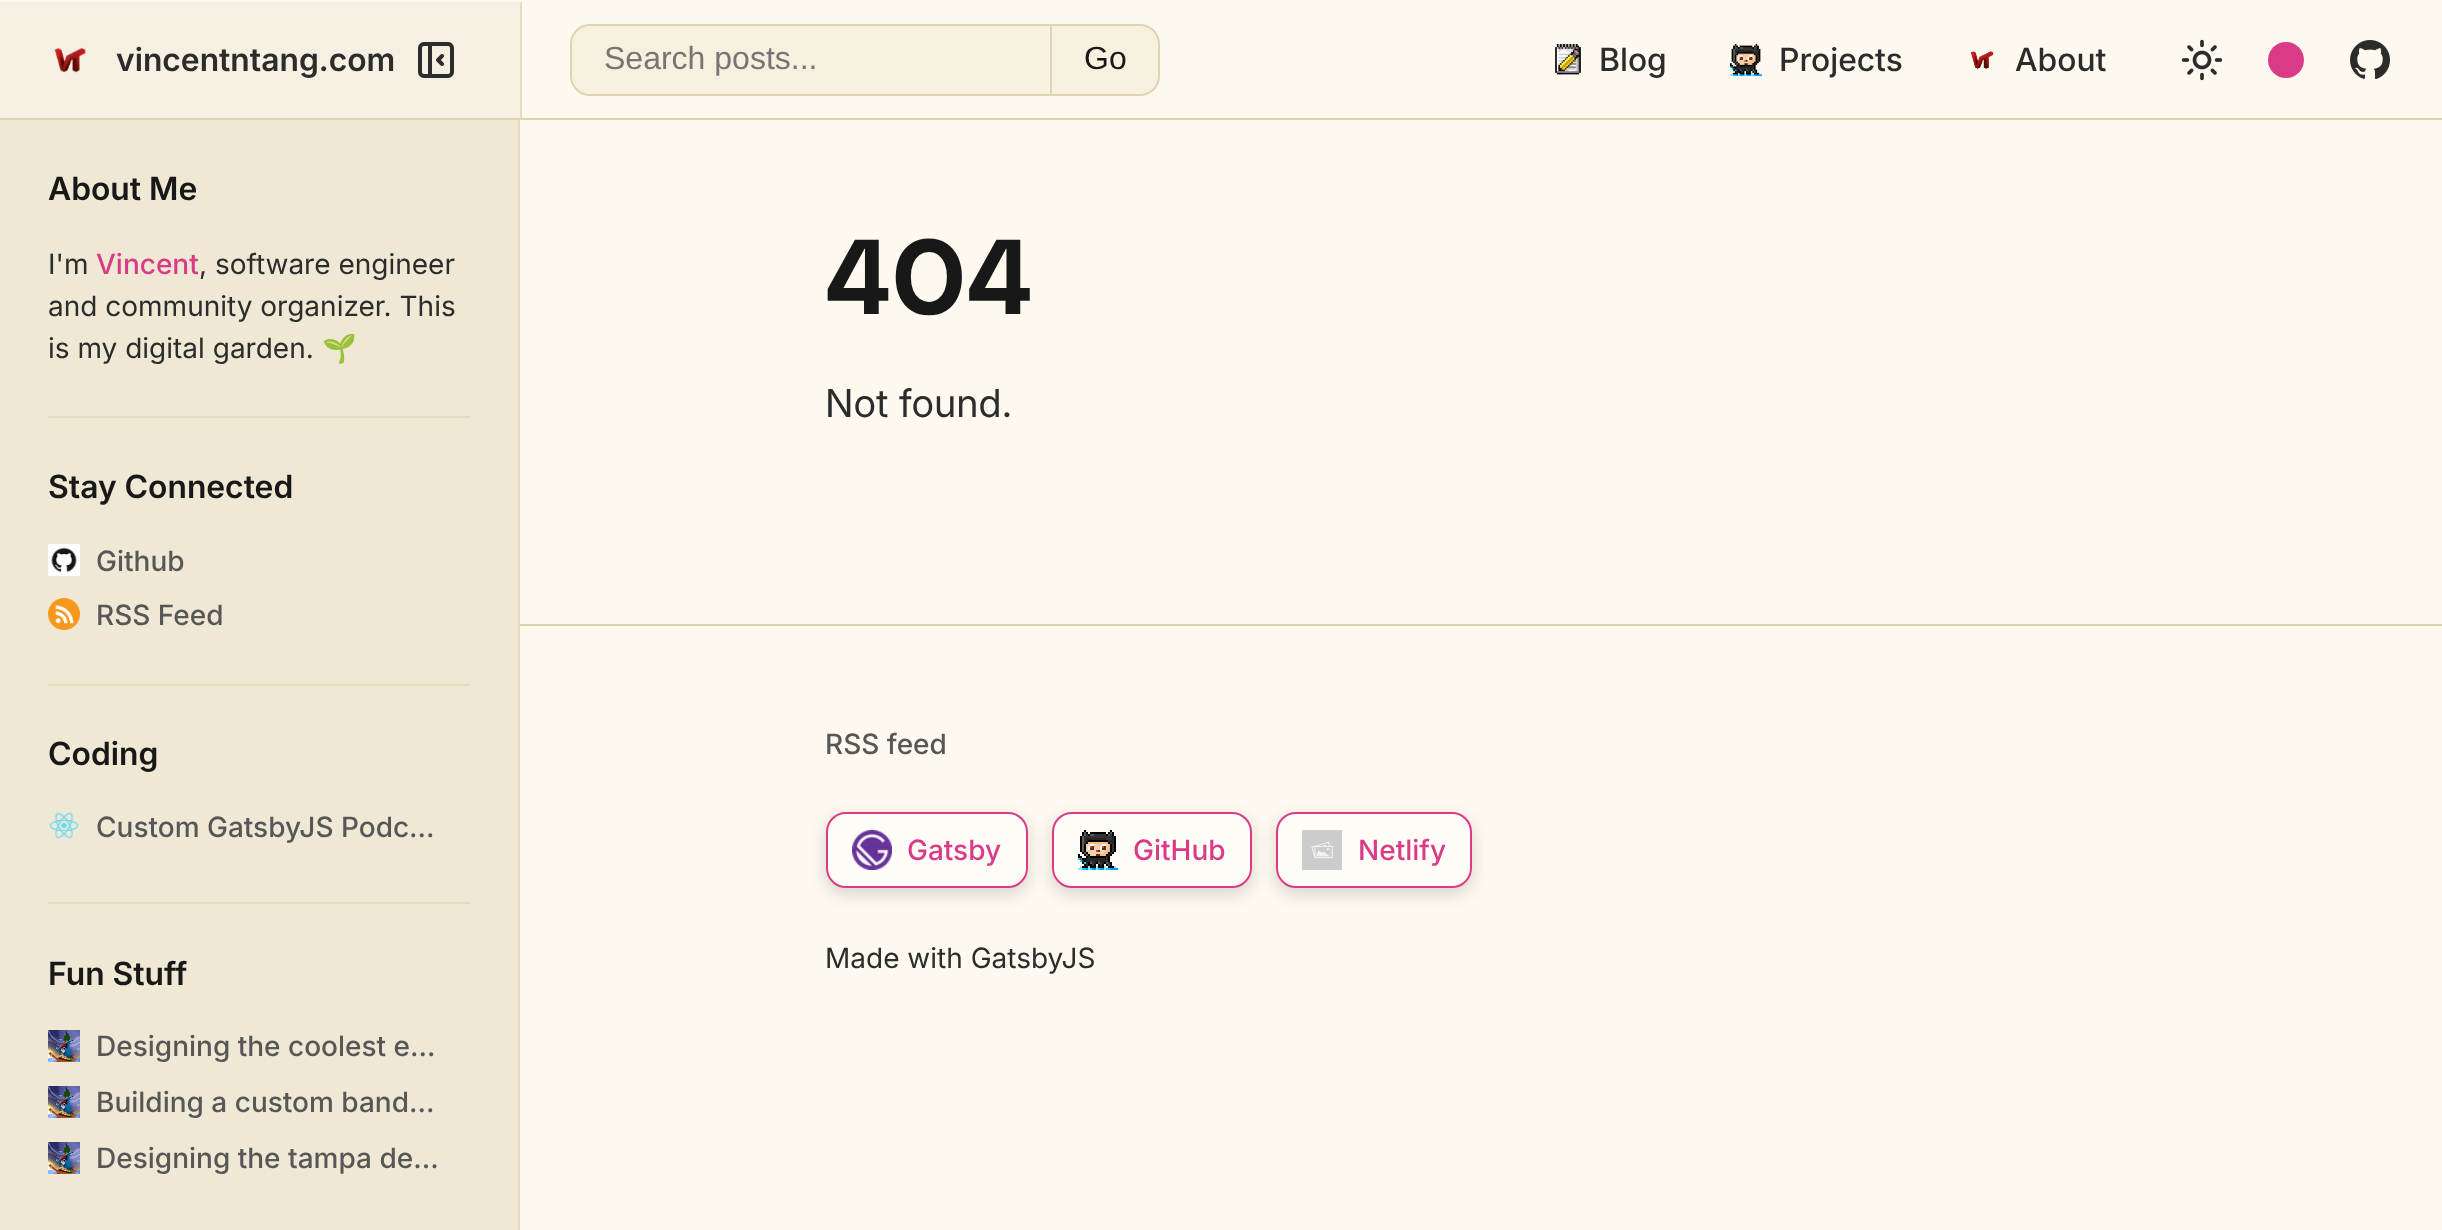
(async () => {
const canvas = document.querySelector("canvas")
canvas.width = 2442
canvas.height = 1230
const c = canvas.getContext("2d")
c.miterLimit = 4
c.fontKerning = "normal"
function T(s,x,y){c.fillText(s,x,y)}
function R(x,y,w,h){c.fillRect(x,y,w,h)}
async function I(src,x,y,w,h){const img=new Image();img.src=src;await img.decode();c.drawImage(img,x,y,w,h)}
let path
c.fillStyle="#fdf9ee"
R(0,0,2442,1230)
c.fillStyle="#ded4b2"
R(0,118,2442,2)
c.fillStyle="#f5f0e1"
R(0,2,520,116)
c.fillStyle="#e5dcbd"
R(520,2,2,116)
await I("1.png",54,47,32,26)
c.font="600 32px Inter"
c.fillStyle="#2c2c2c"
T("vincentntang.com",116,71)
await I("2.png",418,42,36,36)
c.fillStyle="#f6f0df"
c.beginPath()
c.roundRect(571,25,480,70,[19,0,0,19])
c.fill()
c.strokeStyle="#ded4b2"
c.lineWidth=2
c.stroke()
c.font="32px Liberation Sans"
c.fillStyle="#757575"
T("Search posts...",604,69)
c.fillStyle="#f6f0df"
c.beginPath()
c.roundRect(1052,24,108,72,[0,20,20,0])
c.fill()
c.fillStyle="#ded4b2"
path = new Path2D("M1052 24h88c11 0 20 9 20 20v32c0 11-9 20-20 20h-88zm0 2h88c10 0 18 8 18 18v32c0 10-8 18-18 18h-88z")
c.fill(path,"evenodd")
c.fillStyle="#181818"
T("Go",1084,69)
await I("3.png",1555,44,26,31)
c.font="500 32px 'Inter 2'"
c.fillStyle="#2c2c2c"
T("Blog",1599,71)
await I("4.png",1730,44,32,32)
T("Projects",1779,71)
await I("5.png",1970,51,24,18)
T("About",2015,71)
await I("6.png",2181,39,42,42)
c.fillStyle="#da3b87"
c.beginPath()
c.arc(2286,60,18,0,7)
c.fill()
await I("7.png",2350,40,40,39)
c.fillStyle="#eee8d5"
R(0,120,518,1110)
c.fillStyle="#e5dcbd"
R(518,120,2,1110)
R(48,416,422,2)
c.font="600 32px Inter"
c.fillStyle="#181818"
T("About Me",48,200)
c.font="28px 'Inter 2'"
c.fillStyle="#2c2c2c"
T("I'm",48,274)
c.font="500 28px Inter"
c.fillStyle="#da3b87"
T("Vincent",96,274)
c.font="28px 'Inter 2'"
c.fillStyle="#2c2c2c"
T(", software engineer",199,274)
T("and community organizer. This",48,316)
T("is my digital garden.",48,358)
c.font="28px Noto Color Emoji"
T("🌱",322,358)
c.fillStyle="#e5dcbd"
R(48,684,422,2)
c.font="600 32px Inter"
c.fillStyle="#181818"
T("Stay Connected",48,498)
await I("8.png",48,544,32,32)
c.font="500 28px Inter"
c.fillStyle="#575757"
T("Github",96,571)
await I("9.png",48,598,32,32)
T("RSS Feed",96,625)
c.fillStyle="#e5dcbd"
R(48,902,422,2)
c.font="600 32px Inter"
c.fillStyle="#181818"
T("Coding",48,765)
await I("10.png",49,812,30,27)
c.font="500 28px Inter"
c.fillStyle="#575757"
T("Custom GatsbyJS Podc…",96,837)
c.font="600 32px Inter"
c.fillStyle="#181818"
T("Fun Stuff",48,985)
await I("11.png",48,1030,32,32)
c.font="500 28px Inter"
c.fillStyle="#575757"
T("Designing the coolest e…",96,1056)
await I("12.png",48,1086,32,32)
T("Building a custom band…",96,1112)
await I("13.png",48,1142,32,32)
T("Designing the tampa de…",96,1168)
c.letterSpacing="1px"
c.font="800 106px DM Sans"
c.fillStyle="#181818"
T("404",825,314)
c.letterSpacing="0px"
c.font="38.5px Inter"
c.fillStyle="#2c2c2c"
T("Not found.",825,417)
c.fillStyle="#ded4b2"
R(520,624,1922,2)
c.font="500 28px Inter"
c.fillStyle="#575757"
T("RSS feed",825,754)
c.save()
path = new Path2D("M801 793h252v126h-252zm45 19h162c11 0 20 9 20 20v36c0 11-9 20-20 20h-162c-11 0-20-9-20-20v-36c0-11 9-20 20-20z")
c.clip(path,"evenodd")
c.fillStyle="#00050a26"
c.filter="blur(8px)"
c.beginPath()
c.roundRect(826,818,202,76,20)
c.fill()
c.filter="none"
c.restore()
c.fillStyle="#ffffff80"
c.beginPath()
c.roundRect(827,813,200,74,19)
c.fill()
c.strokeStyle="#da3b87"
c.stroke()
await I("14.png",852,830,40,40)
c.fillStyle="#da3b87"
T("Gatsby",907,860)
c.save()
path = new Path2D("M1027 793h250v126h-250zm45 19h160c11 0 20 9 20 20v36c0 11-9 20-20 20h-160c-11 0-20-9-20-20v-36c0-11 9-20 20-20z")
c.clip(path,"evenodd")
c.fillStyle="#00050a26"
c.filter="blur(8px)"
c.beginPath()
c.roundRect(1052,818,200,76,20)
c.fill()
c.filter="none"
c.restore()
c.fillStyle="#ffffff80"
c.beginPath()
c.roundRect(1053,813,198,74,19)
c.fill()
c.stroke()
await I("15.png",1078,830,40,40)
c.fillStyle="#da3b87"
T("GitHub",1133,860)
c.save()
path = new Path2D("M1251 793h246v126h-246zm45 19h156c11 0 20 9 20 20v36c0 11-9 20-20 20h-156c-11 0-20-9-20-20v-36c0-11 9-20 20-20z")
c.clip(path,"evenodd")
c.fillStyle="#00050a26"
c.filter="blur(8px)"
c.beginPath()
c.roundRect(1276,818,196,76,20)
c.fill()
c.filter="none"
c.restore()
c.fillStyle="#ffffff80"
c.beginPath()
c.roundRect(1277,813,194,74,19)
c.fill()
c.stroke()
await I("16.png",1302,830,40,40)
c.fillStyle="#da3b87"
T("Netlify",1358,860)
c.font="28px 'Inter 2'"
c.fillStyle="#2c2c2c"
T("Made with GatsbyJS",825,968)
})()
